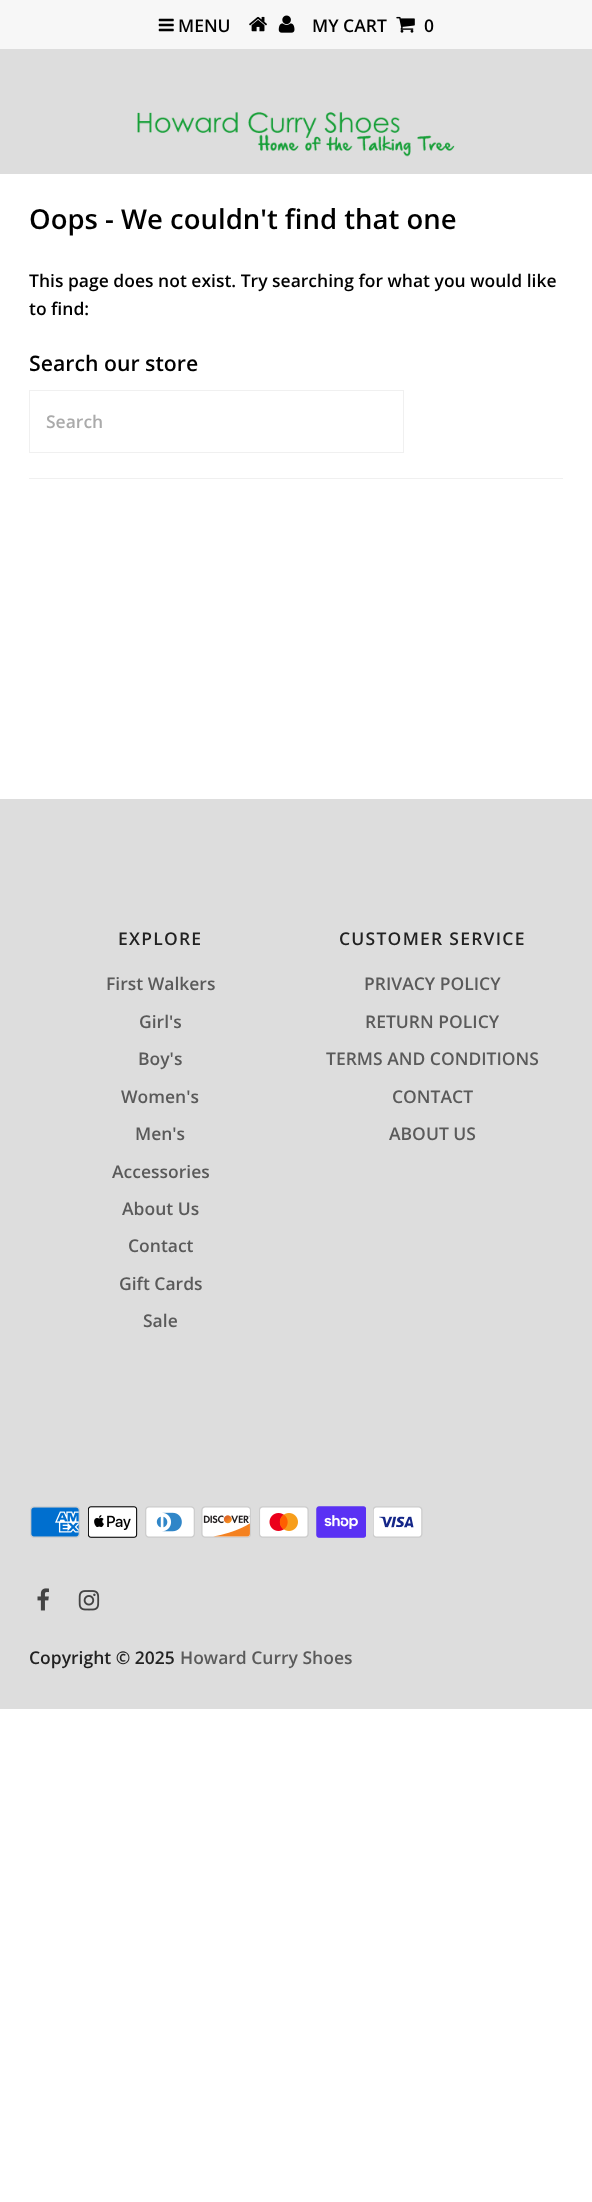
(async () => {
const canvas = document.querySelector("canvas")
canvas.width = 592
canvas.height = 2202
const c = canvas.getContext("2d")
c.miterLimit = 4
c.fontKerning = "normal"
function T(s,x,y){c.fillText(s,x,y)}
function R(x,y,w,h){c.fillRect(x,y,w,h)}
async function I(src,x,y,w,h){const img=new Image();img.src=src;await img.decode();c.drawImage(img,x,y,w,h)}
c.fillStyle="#fff"
R(0,0,592,2202)
c.fillStyle="#f7f7f7"
R(0,0,592,49)
await I("1.png",158,18,16,14)
c.font="600 17.5px Open Sans"
c.fillStyle="#000"
T("MENU",178,32)
await I("2.png",249,16,18,16)
await I("3.png",278,15,17,18)
T("MY CART",312,32)
await I("4.png",396,16,19,17)
T("0",424,32)
c.fillStyle="#ddd"
R(0,49,592,125)
await I("5.png",137,112,318,45)
c.font="600 27.5px Open Sans"
c.fillStyle="#000"
T("Oops - We couldn't find that one",29,229)
c.font="600 17.5px Open Sans"
T("This page does not exist. Try searching for what you would like",29,287)
T("to find:",29,315)
c.fillStyle="#f0f0f0"
R(29,478,534,1)
c.font="600 21.25px Open Sans"
c.fillStyle="#000"
T("Search our store",29,371)
c.strokeStyle="#f0f0f0"
c.strokeRect(29.5,390.5,374,62)
c.font="600 17.5px Open Sans"
c.fillStyle="#aaa"
T("Search",46,428)
c.fillStyle="#ddd"
R(0,799,592,910)
c.letterSpacing="1.25px"
c.fillStyle="#222"
T("EXPLORE",118,945)
c.letterSpacing="0px"
c.fillStyle="#5a5a5a"
T("First Walkers",106,990)
T("Girl's",139,1028)
T("Boy's",138,1065)
T("Women's",121,1103)
T("Men's",135,1140)
T("Accessories",112,1178)
T("About Us",122,1215)
T("Contact",128,1252)
T("Gift Cards",119,1290)
T("Sale",143,1327)
c.letterSpacing="1.25px"
c.fillStyle="#222"
T("CUSTOMER SERVICE",339,945)
c.letterSpacing="0px"
c.fillStyle="#5a5a5a"
T("PRIVACY POLICY",364,990)
T("RETURN POLICY",365,1028)
T("TERMS AND CONDITIONS",326,1065)
T("CONTACT",392,1103)
T("ABOUT US",389,1140)
await I("6.png",30,1506,50,32)
await I("7.png",88,1506,50,32)
await I("8.png",145,1506,50,32)
await I("9.png",201,1506,50,32)
await I("10.png",259,1506,50,32)
await I("11.png",316,1506,50,32)
await I("12.png",373,1506,50,32)
await I("13.png",37,1588,12,23)
await I("14.png",78,1590,22,21)
c.fillStyle="#222"
T("Copyright © 2025",29,1664)
c.fillStyle="#5a5a5a"
T("Howard Curry Shoes",180,1664)
})()
